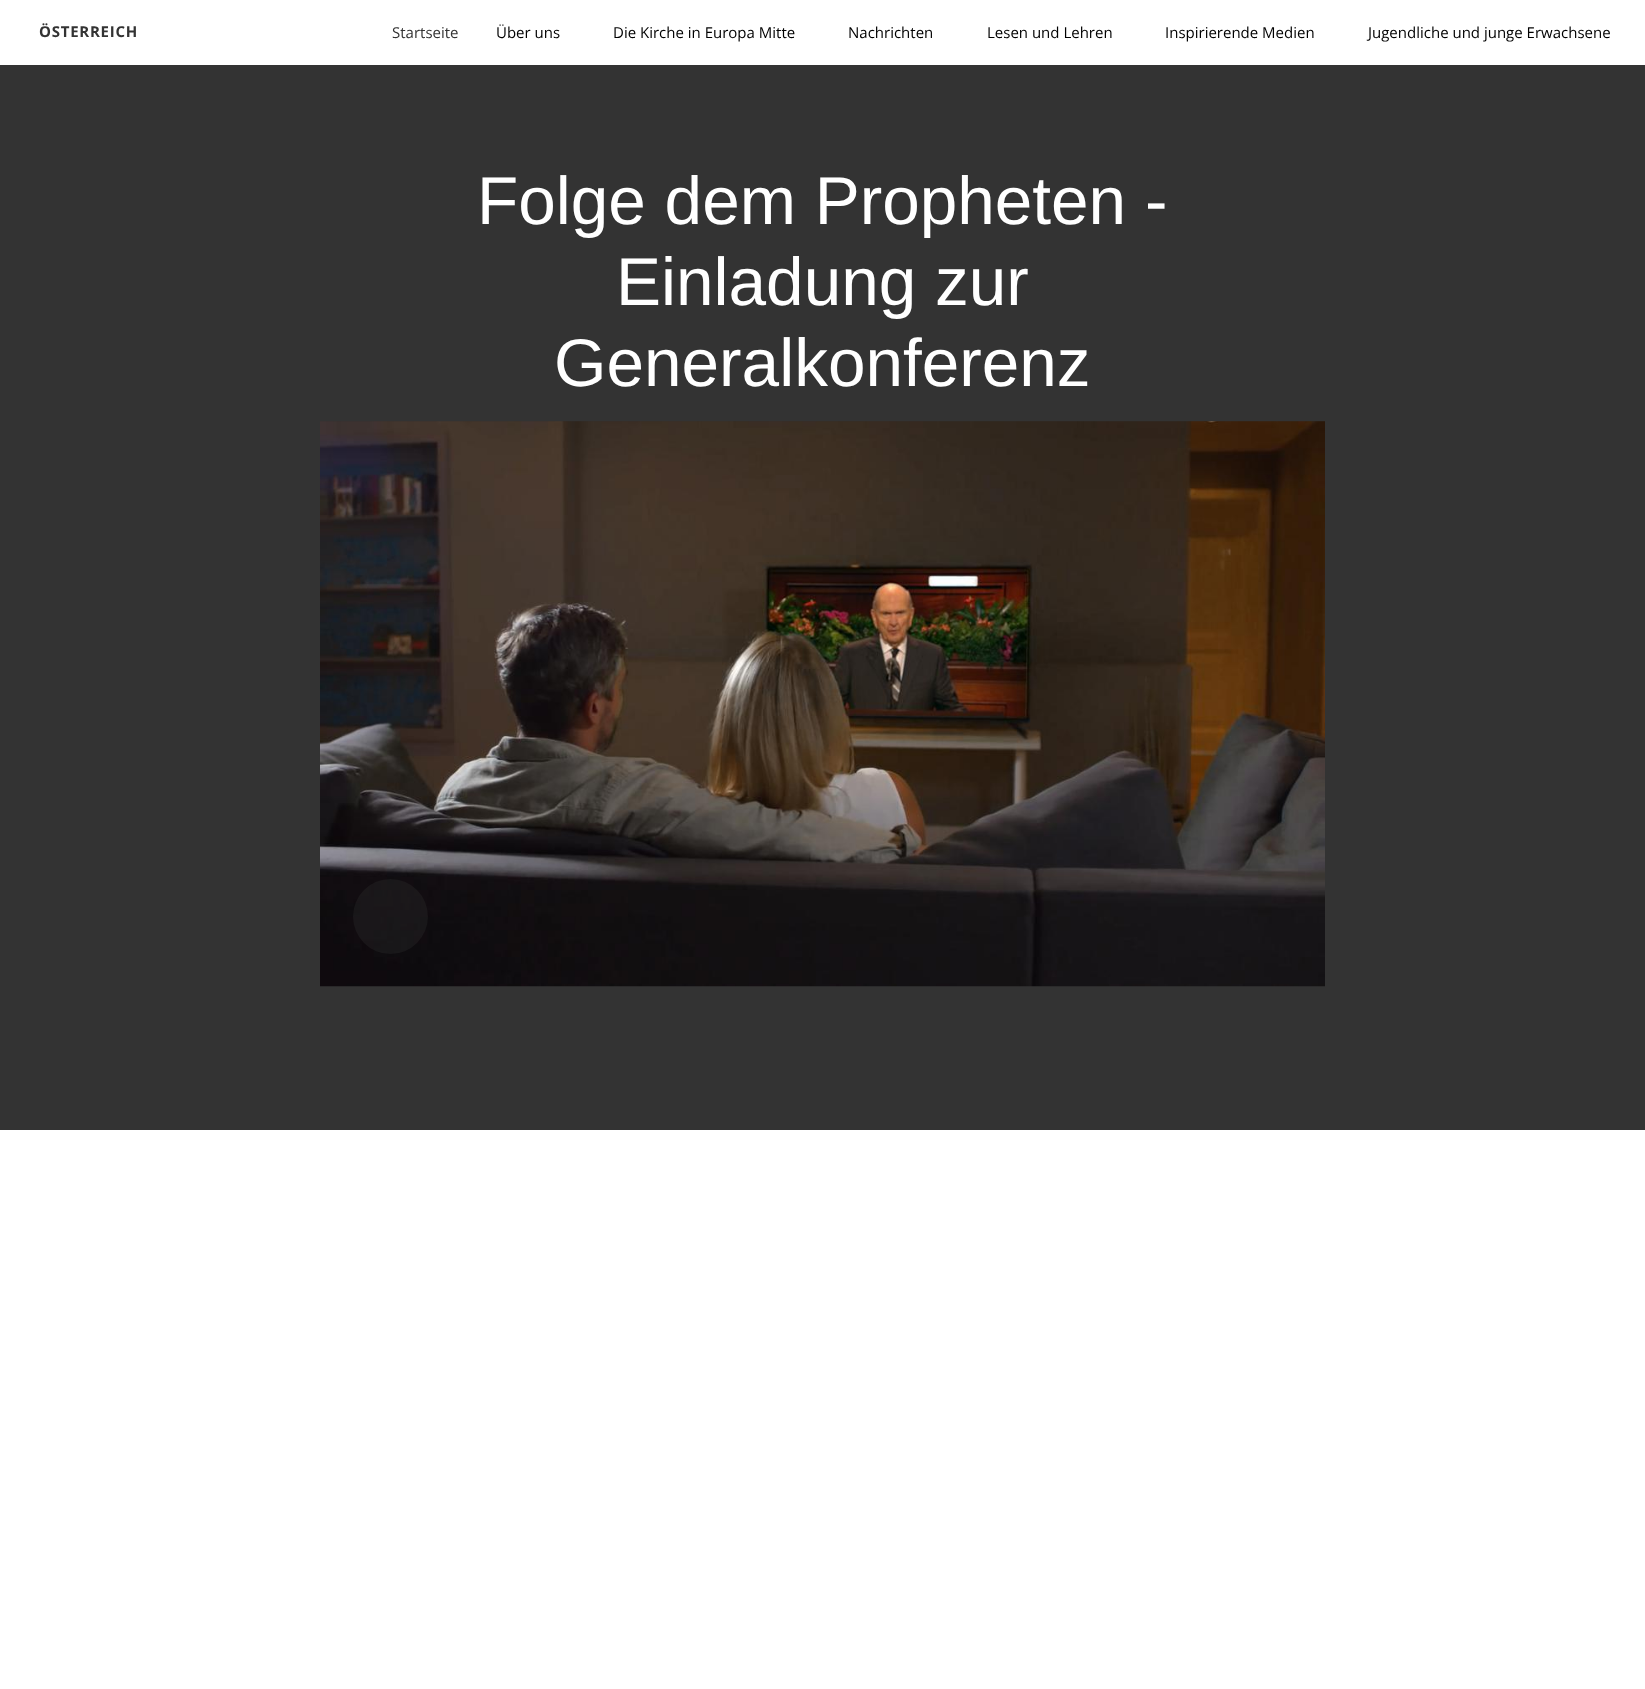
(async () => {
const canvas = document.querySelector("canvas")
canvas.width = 1645
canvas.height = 1689
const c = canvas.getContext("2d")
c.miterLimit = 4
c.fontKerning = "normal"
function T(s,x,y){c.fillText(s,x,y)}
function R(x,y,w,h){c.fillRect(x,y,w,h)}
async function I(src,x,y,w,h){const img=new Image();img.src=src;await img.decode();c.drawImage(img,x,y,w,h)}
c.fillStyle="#fff"
R(0,0,1645,1689)
c.letterSpacing="0.75px"
c.font="bold 15px Open Sans"
c.fillStyle="#333"
T("ÖSTERREICH",39,37)
c.letterSpacing="0px"
c.font="15px Open Sans"
T("Startseite",392,38)
c.fillStyle="#000"
T("Über uns",496,38)
T("Die Kirche in Europa Mitte",613,38)
T("Nachrichten",848,38)
T("Lesen und Lehren",987,38)
T("Inspirierende Medien",1165,38)
T("Jugendliche und junge Erwachsene",1368,38)
c.fillStyle="#333"
R(0,65,1645,1065)
c.font="67.5px Liberation Sans"
c.fillStyle="#fff"
T("Folge dem Propheten -",477,224)
T("Einladung zur",616,305)
T("Generalkonferenz",554,386)
await I("1.png",320,421,1005,566)
c.fillStyle="#3333334d"
c.beginPath()
c.arc(390.5,916.5,37.5,0,7)
c.fill()
})()
